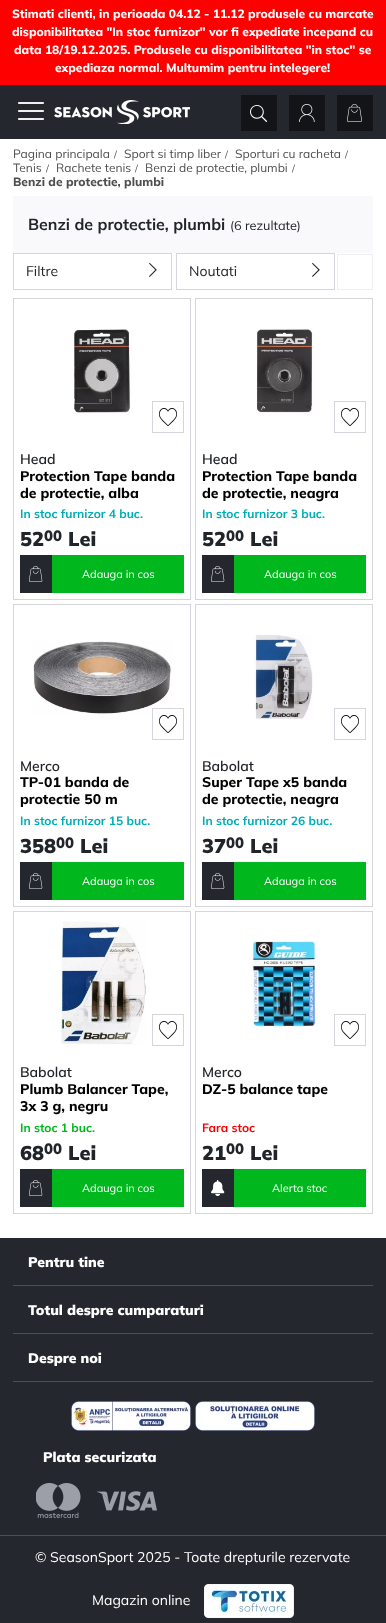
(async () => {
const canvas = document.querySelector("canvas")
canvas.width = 386
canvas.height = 1623
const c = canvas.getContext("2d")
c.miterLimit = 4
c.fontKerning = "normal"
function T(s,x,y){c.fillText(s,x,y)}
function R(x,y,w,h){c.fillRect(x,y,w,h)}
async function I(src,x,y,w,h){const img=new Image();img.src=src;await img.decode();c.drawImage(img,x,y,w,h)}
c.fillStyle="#fff"
R(0,0,386,1623)
c.fillStyle="#f00"
R(0,0,386,85)
c.font="800 12px Mulish"
c.fillStyle="#fff"
T("Stimati clienti, in perioada 04.12 - 11.12 produsele cu marcate",12,18)
T("disponibilitatea \"In stoc furnizor\" vor fi expediate incepand cu",12,36)
T("data 18/19.12.2025. Produsele cu disponibilitatea \"in stoc\" se",14,54)
T("expediaza normal. Multumim pentru intelegere!",55,72)
c.fillStyle="#24272e"
R(0,85,386,54)
await I("1.png",18,102,26,18)
await I("2.png",54,100,136,24)
c.fillStyle="#131418"
R(241,95,36,36)
await I("3.png",250,105,18,17)
R(289,95,36,36)
await I("4.png",299,104,16,18)
R(337,95,36,36)
await I("5.png",347,104,15,18)
c.font="12px Mulish"
c.fillStyle="#4f4f4f"
T("Pagina principala",13,158)
c.font="10px Mulish"
T("/",114,158)
c.font="12px Mulish"
T("Sport si timp liber",124,158)
c.font="10px Mulish"
T("/",225,158)
c.font="12px Mulish"
T("Sporturi cu racheta",235,158)
c.font="10px Mulish"
T("/",345,158)
c.font="12px Mulish"
T("Tenis",13,172)
c.font="10px Mulish"
T("/",46,172)
c.font="12px Mulish"
T("Rachete tenis",56,172)
c.font="10px Mulish"
T("/",135,172)
c.font="12px Mulish"
T("Benzi de protectie, plumbi",145,172)
c.font="10px Mulish"
T("/",292,172)
c.font="800 12px Mulish"
T("Benzi de protectie, plumbi",13,186)
c.fillStyle="#f9f9fb"
R(13,196,360,57)
c.font="bold 16px Mulish"
c.fillStyle="#212529"
T("Benzi de protectie, plumbi",28,230)
c.font="12.75px Mulish"
T("(6 rezultate)",230,230)
c.strokeStyle="#d5d6dc"
c.strokeRect(13.5,253.5,158,36)
c.font="14px Mulish"
T("Filtre",26,276)
await I("6.png",149,262,8,15)
c.strokeRect(176.5,253.5,158,36)
T("Noutati",189,276)
await I("6.png",312,262,8,15)
c.strokeStyle="#eeeff1"
c.strokeRect(337.5,254.5,35,35)
c.strokeStyle="#d5d6dc"
c.strokeRect(13.5,298.5,177,301)
await I("7.png",74,329,59,85)
c.strokeRect(152.5,401.5,31,31)
await I("8.png",159,408,18,18)
c.font="600 14px Mulish"
T("Head",20,464)
c.font="800 14px Mulish"
c.fillStyle="#000"
T("Protection Tape banda",20,481)
T("de protectie, alba",20,498)
c.font="bold 12px Mulish"
c.fillStyle="#00acb7"
T("In stoc furnizor 4 buc.",20,518)
c.font="900 20px Mulish"
c.fillStyle="#212529"
T("52",20,546)
c.font="900 15px Mulish"
T("00",44,541)
c.font="900 20px Mulish"
T("Lei",68,546)
c.fillStyle="#00b81d"
R(52,555,132,38)
c.fillStyle="#24272e"
R(20,555,32,38)
await I("9.png",29,566,14,16)
c.font="11px Mulish"
c.fillStyle="#fff"
T("Adauga in cos",82,578)
c.strokeRect(195.5,298.5,177,301)
await I("10.png",256,328,59,86)
c.strokeRect(334.5,401.5,31,31)
await I("8.png",341,408,18,18)
c.font="600 14px Mulish"
c.fillStyle="#212529"
T("Head",202,464)
c.font="800 14px Mulish"
c.fillStyle="#000"
T("Protection Tape banda",202,481)
T("de protectie, neagra",202,498)
c.font="bold 12px Mulish"
c.fillStyle="#00acb7"
T("In stoc furnizor 3 buc.",202,518)
c.font="900 20px Mulish"
c.fillStyle="#212529"
T("52",202,546)
c.font="900 15px Mulish"
T("00",226,541)
c.font="900 20px Mulish"
T("Lei",250,546)
c.fillStyle="#00b81d"
R(234,555,132,38)
c.fillStyle="#24272e"
R(202,555,32,38)
await I("9.png",211,566,14,16)
c.font="11px Mulish"
c.fillStyle="#fff"
T("Adauga in cos",264,578)
c.strokeRect(13.5,604.5,177,302)
await I("11.png",33,641,139,73)
c.strokeRect(152.5,708.5,31,31)
await I("8.png",159,715,18,18)
c.font="600 14px Mulish"
c.fillStyle="#212529"
T("Merco",20,771)
c.font="800 14px Mulish"
c.fillStyle="#000"
T("TP-01 banda de",20,787)
T("protectie 50 m",20,804)
c.font="bold 12px Mulish"
c.fillStyle="#00acb7"
T("In stoc furnizor 15 buc.",20,825)
c.font="900 20px Mulish"
c.fillStyle="#212529"
T("358",20,853)
c.font="900 15px Mulish"
T("00",56,848)
c.font="900 20px Mulish"
T("Lei",80,853)
c.fillStyle="#00b81d"
R(52,862,132,38)
c.fillStyle="#24272e"
R(20,862,32,38)
await I("9.png",29,873,14,16)
c.font="11px Mulish"
c.fillStyle="#fff"
T("Adauga in cos",82,885)
c.strokeRect(195.5,604.5,177,302)
await I("12.png",254,634,59,86)
c.strokeRect(334.5,708.5,31,31)
await I("8.png",341,715,18,18)
c.font="600 14px Mulish"
c.fillStyle="#212529"
T("Babolat",202,771)
c.font="800 14px Mulish"
c.fillStyle="#000"
T("Super Tape x5 banda",202,787)
T("de protectie, neagra",202,804)
c.font="bold 12px Mulish"
c.fillStyle="#00acb7"
T("In stoc furnizor 26 buc.",202,825)
c.font="900 20px Mulish"
c.fillStyle="#212529"
T("37",202,853)
c.font="900 15px Mulish"
T("00",226,848)
c.font="900 20px Mulish"
T("Lei",250,853)
c.fillStyle="#00b81d"
R(234,862,132,38)
c.fillStyle="#24272e"
R(202,862,32,38)
await I("9.png",211,873,14,16)
c.font="11px Mulish"
c.fillStyle="#fff"
T("Adauga in cos",264,885)
c.strokeRect(13.5,911.5,177,302)
await I("13.png",60,921,86,124)
c.strokeRect(152.5,1014.5,31,31)
await I("8.png",159,1021,18,18)
c.font="600 14px Mulish"
c.fillStyle="#212529"
T("Babolat",20,1077)
c.font="800 14px Mulish"
c.fillStyle="#000"
T("Plumb Balancer Tape,",20,1094)
T("3x 3 g, negru",20,1111)
c.font="bold 12px Mulish"
c.fillStyle="#00b71d"
T("In stoc 1 buc.",20,1132)
c.font="900 20px Mulish"
c.fillStyle="#212529"
T("68",20,1160)
c.font="900 15px Mulish"
T("00",44,1154)
c.font="900 20px Mulish"
T("Lei",68,1160)
c.fillStyle="#00b81d"
R(52,1169,132,38)
c.fillStyle="#24272e"
R(20,1169,32,38)
await I("9.png",29,1180,14,16)
c.font="11px Mulish"
c.fillStyle="#fff"
T("Adauga in cos",82,1192)
c.strokeRect(195.5,911.5,177,302)
await I("14.png",252,940,64,87)
c.strokeRect(334.5,1014.5,31,31)
await I("8.png",341,1021,18,18)
c.font="600 14px Mulish"
c.fillStyle="#212529"
T("Merco",202,1077)
c.font="800 14px Mulish"
c.fillStyle="#000"
T("DZ-5 balance tape",202,1094)
c.font="bold 12px Mulish"
c.fillStyle="#f00"
T("Fara stoc",202,1132)
c.font="900 20px Mulish"
c.fillStyle="#212529"
T("21",202,1160)
c.font="900 15px Mulish"
T("00",226,1154)
c.font="900 20px Mulish"
T("Lei",250,1160)
c.fillStyle="#00b81d"
R(234,1169,132,38)
c.fillStyle="#24272e"
R(202,1169,32,38)
await I("15.png",211,1180,14,16)
c.font="11px Mulish"
c.fillStyle="#fff"
T("Alerta stoc",272,1192)
c.fillStyle="#24272e"
R(0,1238,386,297)
c.fillStyle="#4f4f4f"
R(13,1285,360,1)
c.font="900 14px Mulish"
c.fillStyle="#fff"
T("Pentru tine",28,1267)
c.fillStyle="#4f4f4f"
R(13,1333,360,1)
c.fillStyle="#fff"
T("Totul despre cumparaturi",28,1315)
c.fillStyle="#4f4f4f"
R(13,1381,360,1)
c.fillStyle="#fff"
T("Despre noi",28,1363)
await I("16.png",71,1401,120,30)
await I("17.png",195,1401,120,30)
T("Plata securizata",43,1462)
await I("18.png",36,1483,45,35)
await I("19.png",97,1491,60,20)
c.fillStyle="#24272e"
R(0,1536,386,87)
c.fillStyle="#4f4f4f"
R(0,1535,386,1)
c.font="14px Mulish"
c.fillStyle="#fff"
T("© SeasonSport 2025 - Toate drepturile rezervate",35,1562)
T("Magazin online",92,1605)
await I("20.png",204,1584,90,34)
})()
